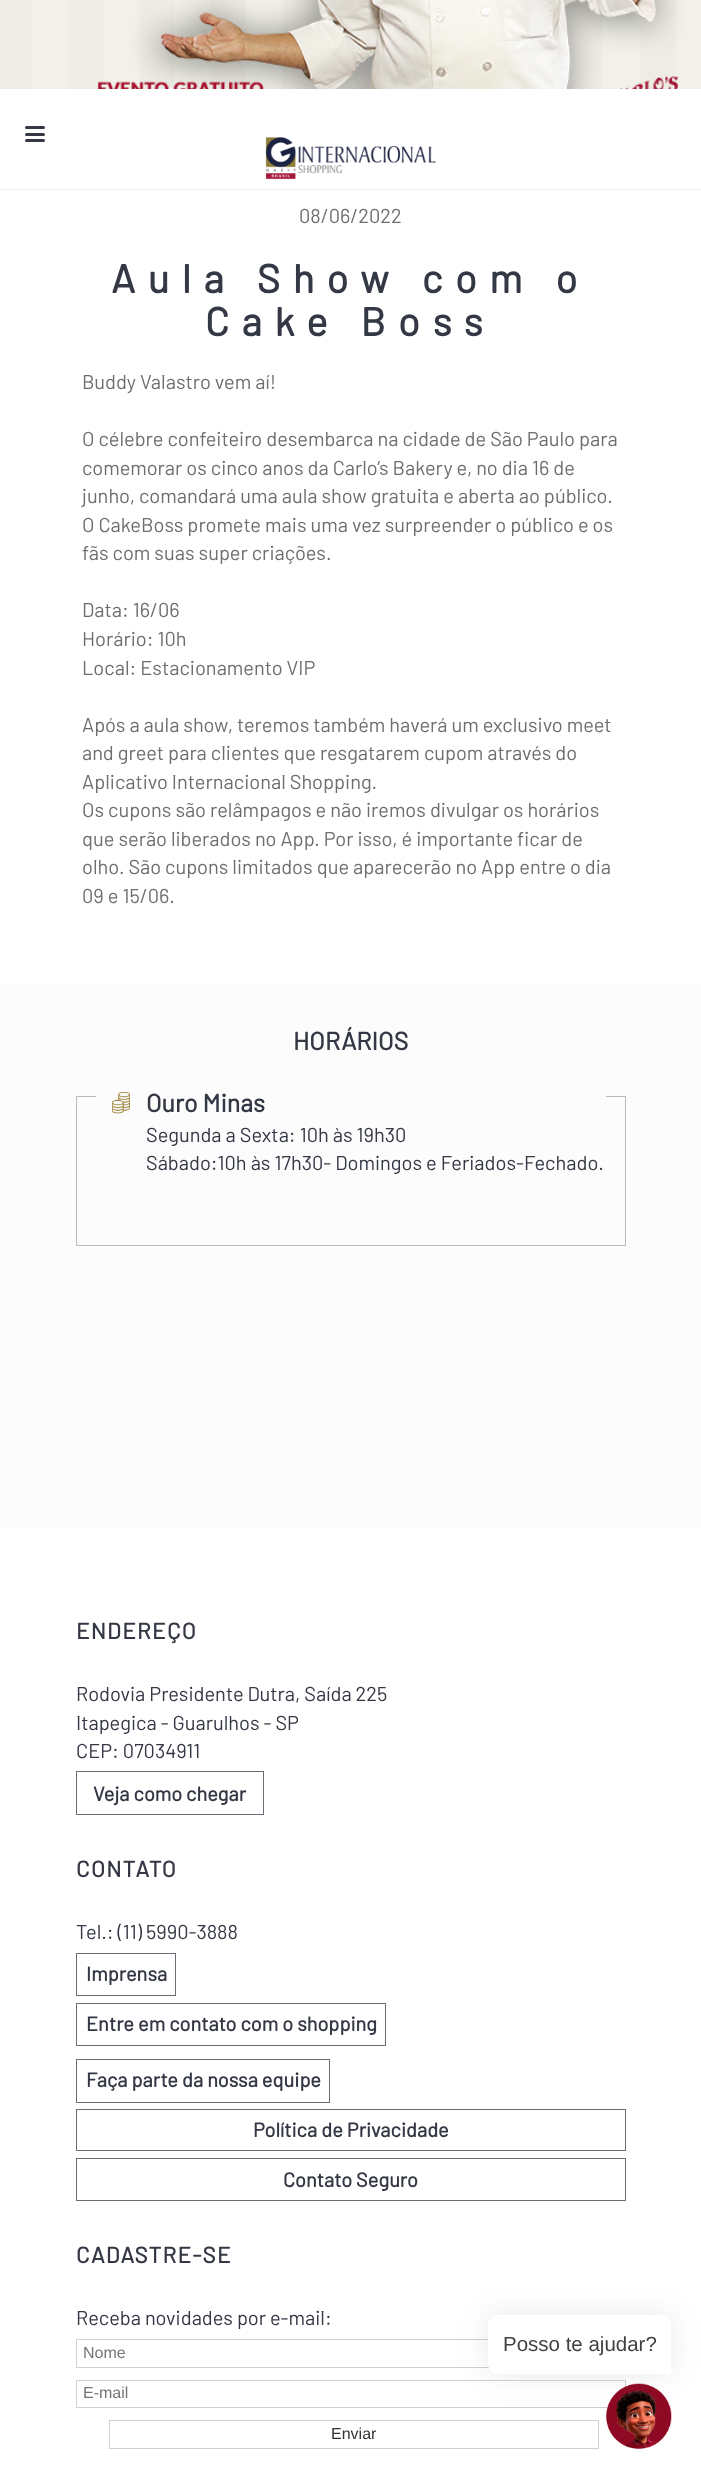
(async () => {
const canvas = document.querySelector("canvas")
canvas.width = 701
canvas.height = 2478
const c = canvas.getContext("2d")
c.miterLimit = 4
c.fontKerning = "normal"
function T(s,x,y){c.fillText(s,x,y)}
function R(x,y,w,h){c.fillRect(x,y,w,h)}
function Q(x,y,w,h,r){c.beginPath();c.roundRect(x,y,w,h,r);c.fill()}
async function I(src,x,y,w,h){const img=new Image();img.src=src;await img.decode();c.drawImage(img,x,y,w,h)}
c.fillStyle="#fff"
R(0,0,701,2478)
await I("1.png",0,0,701,89)
c.fillStyle="#eee"
R(0,189,701,1)
c.fillStyle="#343744"
Q(25,133,20,3,1.5)
Q(25,126,20,3,1.5)
Q(25,139,20,3,1.5)
await I("2.png",265,137,172,43)
c.font="20px Barlow"
c.fillStyle="#6e6e6e"
T("08/06/2022",299,223)
c.letterSpacing="12.5px"
c.font="bold 40px Barlow"
c.fillStyle="#343744"
T("Aula Show com o",111,293)
T("Cake Boss",205,336)
c.letterSpacing="0px"
c.font="20px Barlow"
c.fillStyle="#6e6e6e"
T("Buddy Valastro vem aí!",82,389)
T("O célebre confeiteiro desembarca na cidade de São Paulo para",82,446)
T("comemorar os cinco anos da Carlo’s Bakery e, no dia 16 de",82,475)
T("junho, comandará uma aula show gratuita e aberta ao público.",82,503)
T("O CakeBoss promete mais uma vez surpreender o público e os",82,532)
T("fãs com suas super criações.",82,560)
T("Data: 16/06",82,617)
T("Horário: 10h",82,646)
T("Local: Estacionamento VIP",82,675)
T("Após a aula show, teremos também haverá um exclusivo meet",82,732)
T("and greet para clientes que resgatarem cupom através do",82,760)
T("Aplicativo Internacional Shopping.",82,789)
T("Os cupons são relâmpagos e não iremos divulgar os horários",82,817)
T("que serão liberados no App. Por isso, é importante ficar de",82,846)
T("olho. São cupons limitados que aparecerão no App entre o dia",82,874)
T("09 e 15/06.",82,903)
c.fillStyle="#fcfcfc"
R(0,985,701,543)
c.font="bold 25px Barlow"
c.fillStyle="#343744"
T("HORÁRIOS",293,1050)
c.strokeStyle="#bbb"
c.strokeRect(76.5,1096.5,549,149)
c.fillStyle="#fcfcfc"
R(96,1096,510,1)
await I("3.png",112,1092,18,22)
c.fillStyle="#343744"
T("Ouro Minas",146,1112)
c.font="20px Barlow"
T("Segunda a Sexta: 10h às 19h30",146,1142)
T("Sábado:10h às 17h30- Domingos e Feriados-Fechado.",146,1170)
c.letterSpacing="1.25px"
c.font="bold 22.5px Barlow"
T("ENDEREÇO",76,1639)
c.letterSpacing="0px"
c.font="20px Barlow"
T("Rodovia Presidente Dutra, Saída 225",76,1701)
T("Itapegica - Guarulhos - SP",76,1730)
T("CEP: 07034911",76,1758)
c.strokeStyle="#6a6c76"
c.strokeRect(76.5,1771.5,187,43)
c.font="bold 20px Barlow"
T("Veja como chegar",93,1801)
c.letterSpacing="1.25px"
c.font="bold 22.5px Barlow"
T("CONTATO",76,1877)
c.letterSpacing="0px"
c.font="20px Barlow"
T("Tel.: (11) 5990-3888",76,1939)
c.strokeRect(76.5,1953.5,99,42)
c.font="bold 20px Barlow"
T("Imprensa",86,1981)
c.strokeRect(76.5,2003.5,309,42)
T("Entre em contato com o shopping",86,2031)
c.strokeRect(76.5,2059.5,253,43)
T("Faça parte da nossa equipe",86,2087)
c.strokeRect(76.5,2109.5,549,41)
T("Política de Privacidade",253,2137)
c.strokeRect(76.5,2158.5,549,42)
T("Contato Seguro",283,2187)
c.letterSpacing="1.25px"
c.font="bold 22.5px Barlow"
T("CADASTRE-SE",76,2263)
c.letterSpacing="0px"
c.font="20px Barlow"
T("Receba novidades por e-mail:",76,2325)
c.strokeStyle="#d2d0d0"
c.strokeRect(76.5,2339.5,549,28)
c.font="16px Liberation Sans"
c.fillStyle="#757575"
T("Nome",83,2358)
c.strokeRect(76.5,2380.5,549,27)
T("E-mail",83,2398)
c.strokeRect(109.5,2420.5,489,28)
c.fillStyle="#333"
T("Enviar",331,2439)
c.fillStyle="#403f421f"
c.filter="blur(15px)"
c.beginPath()
c.roundRect(488,2315,183,59,10)
c.fill()
c.filter="none"
c.fillStyle="#fff"
c.beginPath()
c.roundRect(488,2315,183,59,[10,10,0,10])
c.fill()
c.font="20.5px Liberation Sans"
c.fillStyle="#403f42"
T("Posso te ajudar?",503,2351)
await I("4.png",606,2383,66,66)
})()
